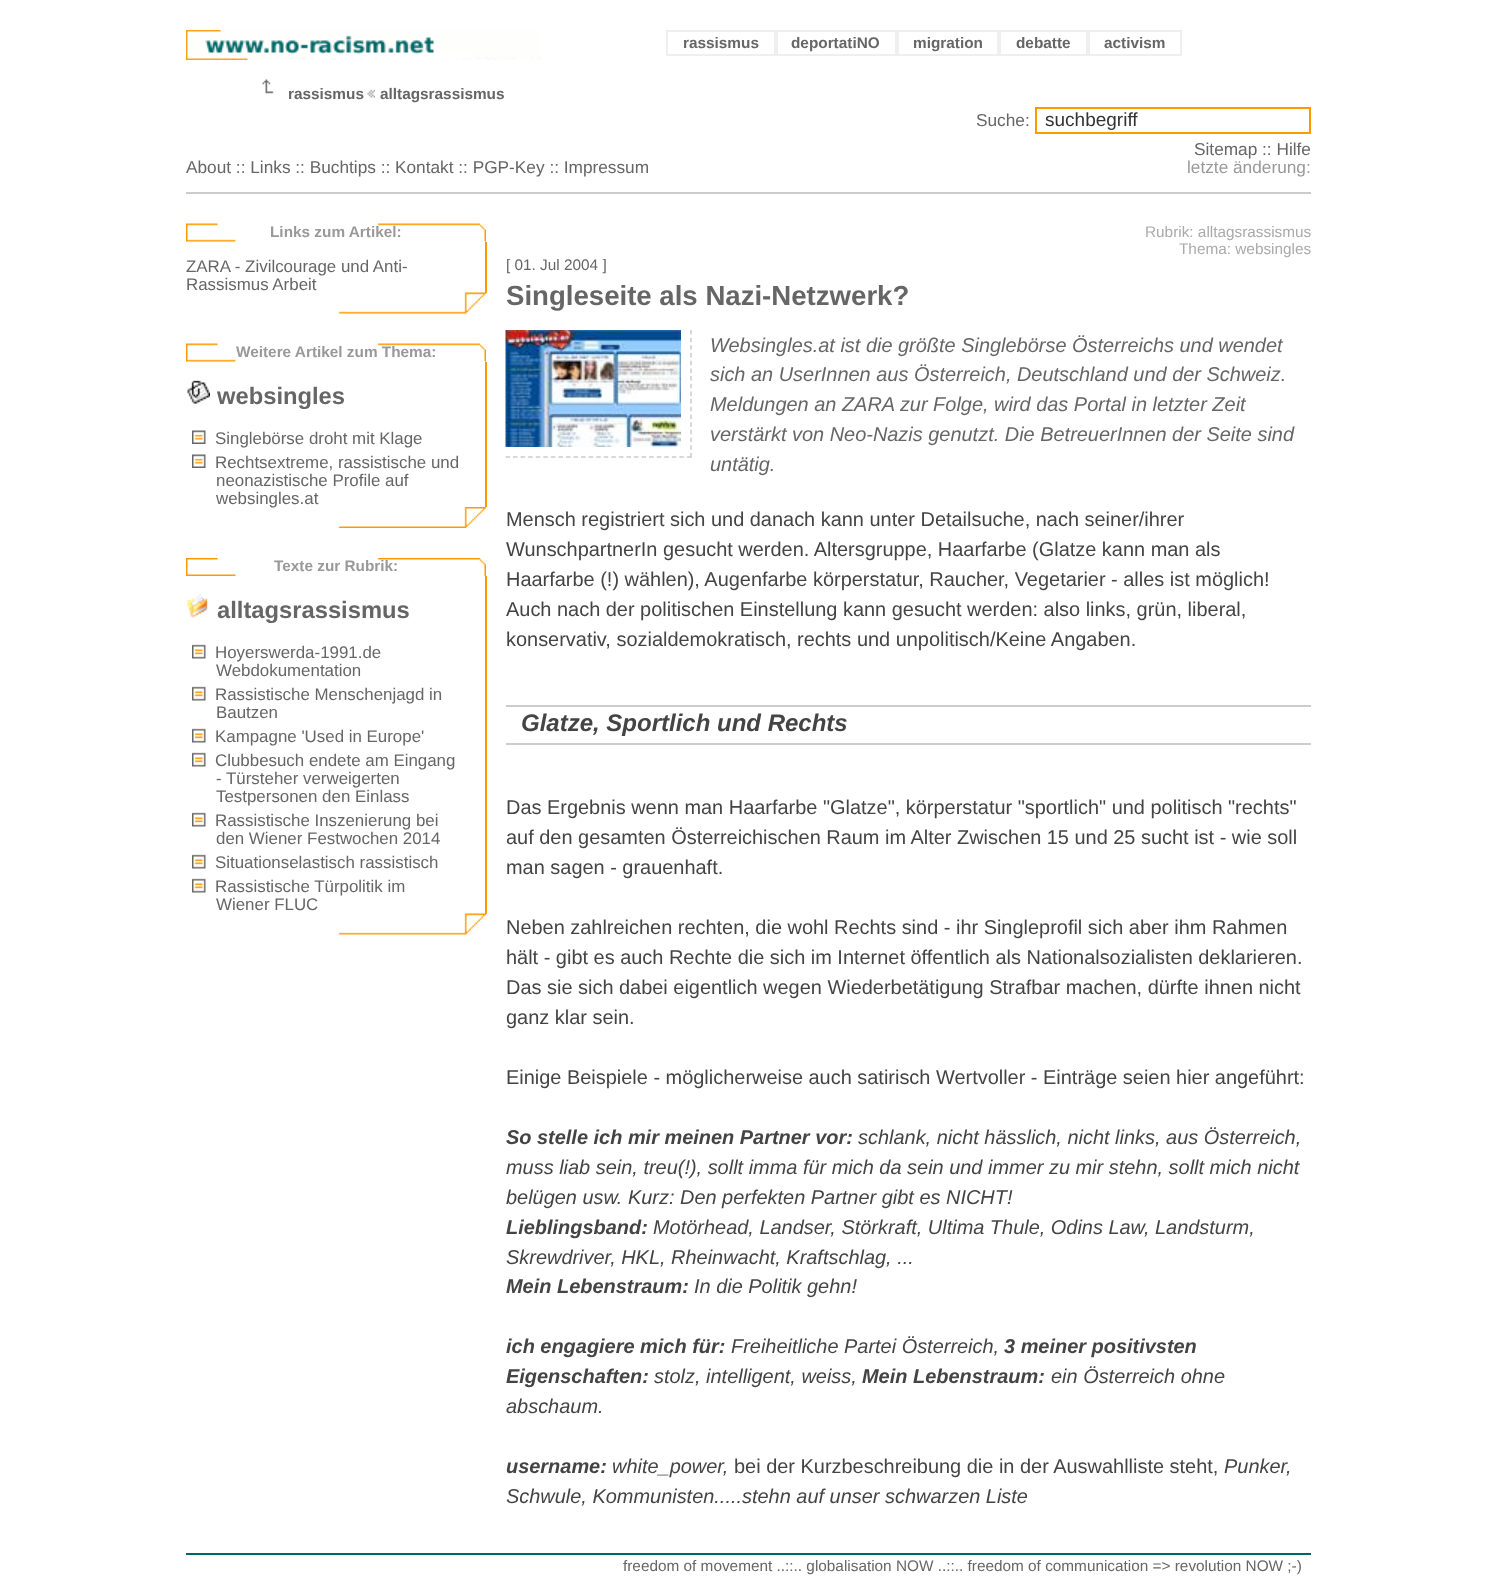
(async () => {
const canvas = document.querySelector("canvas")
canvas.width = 1511
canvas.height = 1579
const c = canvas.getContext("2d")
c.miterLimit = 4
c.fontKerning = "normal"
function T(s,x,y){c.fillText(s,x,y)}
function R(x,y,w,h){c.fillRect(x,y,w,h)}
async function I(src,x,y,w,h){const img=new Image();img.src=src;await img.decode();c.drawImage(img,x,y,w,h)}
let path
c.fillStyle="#fff"
R(0,0,1511,1579)
await I("1.png",186,30,355,30)
c.strokeStyle="#efefef"
c.lineWidth=2
c.strokeRect(667,31,108,24)
c.font="bold 15.35px Liberation Sans"
c.fillStyle="#666"
T("rassismus",683,48)
c.strokeRect(777,31,119,24)
T("deportatiNO",791,48)
c.strokeRect(898,31,100,24)
T("migration",913,48)
c.strokeRect(1000,31,87,24)
T("debatte",1016,48)
c.strokeRect(1089,31,92,24)
T("activism",1104,48)
await I("2.png",262,79,12,15)
T("rassismus",288,99)
await I("3.png",367,89,8,9)
T("alltagsrassismus",380,99)
c.font="17.25px Liberation Sans"
T("About :: Links :: Buchtips :: Kontakt :: PGP-Key :: Impressum",186,173)
T("Suche:",976,126)
c.strokeStyle="#f90"
c.strokeRect(1036,108,274,25)
c.font="19px Liberation Sans"
c.fillStyle="#333"
T("suchbegriff",1045,126)
c.font="17.25px Liberation Sans"
c.fillStyle="#666"
T("Sitemap :: Hilfe",1194,155)
c.fillStyle="#999"
T("letzte änderung:",1187,173)
c.fillStyle="#ccc"
R(186,192,1125,2)
await I("4.png",186,223,300,19)
c.font="bold 15.35px Liberation Sans"
c.fillStyle="#999"
T("Links zum Artikel:",270,237)
c.fillStyle="#f90"
R(485,242,2,51)
c.font="16.9px Liberation Sans"
c.fillStyle="#666"
T("ZARA - Zivilcourage und Anti-",186,272)
T("Rassismus Arbeit",186,290)
await I("5.png",338,292,148,22)
await I("4.png",186,343,300,19)
c.font="bold 15.35px Liberation Sans"
c.fillStyle="#999"
T("Weitere Artikel zum Thema:",236,357)
c.fillStyle="#f90"
R(485,362,2,145)
await I("6.png",187,380,23,24)
c.font="bold 23.75px Liberation Sans"
c.fillStyle="#666"
T("websingles",217,404)
await I("7.png",192,430,14,14)
c.font="16.9px Liberation Sans"
T("Singlebörse droht mit Klage",215,444)
await I("7.png",192,454,14,14)
T("Rechtsextreme, rassistische und",215,468)
T("neonazistische Profile auf",216,486)
T("websingles.at",216,504)
await I("8.png",338,507,148,21)
await I("9.png",186,558,300,18)
c.font="bold 15.35px Liberation Sans"
c.fillStyle="#999"
T("Texte zur Rubrik:",274,571)
c.fillStyle="#f90"
R(485,576,2,338)
await I("10.png",186,594,22,24)
c.font="bold 23.75px Liberation Sans"
c.fillStyle="#666"
T("alltagsrassismus",217,618)
await I("11.png",192,644,14,15)
c.font="16.9px Liberation Sans"
T("Hoyerswerda-1991.de",215,658)
T("Webdokumentation",216,676)
await I("11.png",192,686,14,15)
T("Rassistische Menschenjagd in",215,700)
T("Bautzen",216,718)
await I("11.png",192,728,14,15)
T("Kampagne 'Used in Europe'",215,742)
await I("11.png",192,752,14,15)
T("Clubbesuch endete am Eingang",215,766)
T("- Türsteher verweigerten",216,784)
T("Testpersonen den Einlass",216,802)
await I("11.png",192,812,14,15)
T("Rassistische Inszenierung bei",215,826)
T("den Wiener Festwochen 2014",216,844)
await I("11.png",192,854,14,15)
T("Situationselastisch rassistisch",215,868)
await I("11.png",192,878,14,15)
T("Rassistische Türpolitik im",215,892)
T("Wiener FLUC",216,910)
await I("5.png",338,913,148,22)
c.font="15.35px Liberation Sans"
c.fillStyle="#aaa"
T("Rubrik: alltagsrassismus",1145,237)
T("Thema: websingles",1179,254)
c.fillStyle="#666"
T("[ 01. Jul 2004 ]",506,270)
c.font="bold 27.6px Liberation Sans"
T("Singleseite als Nazi-Netzwerk?",506,305)
path = new Path2D("M691 330v127.5")
c.strokeStyle="#ccc"
c.lineWidth=1.5
c.setLineDash([4.5,3.18])
c.stroke(path)
path = new Path2D("M505.5 457h186")
c.setLineDash([4.5,3.06])
c.stroke(path)
await I("12.png",505,330,176,117)
c.font="italic 19.95px Liberation Sans"
T("Websingles.at ist die größte Singlebörse Österreichs und wendet",710,352)
T("sich an UserInnen aus Österreich, Deutschland und der Schweiz.",710,381)
T("Meldungen an ZARA zur Folge, wird das Portal in letzter Zeit",710,411)
T("verstärkt von Neo-Nazis genutzt. Die BetreuerInnen der Seite sind",710,441)
T("untätig.",710,471)
c.font="19.95px Liberation Sans"
c.fillStyle="#444"
T("Mensch registriert sich und danach kann unter Detailsuche, nach seiner/ihrer",506,526)
T("WunschpartnerIn gesucht werden. Altersgruppe, Haarfarbe (Glatze kann man als",506,556)
T("Haarfarbe (!) wählen), Augenfarbe körperstatur, Raucher, Vegetarier - alles ist möglich!",506,586)
T("Auch nach der politischen Einstellung kann gesucht werden: also links, grün, liberal,",506,616)
T("konservativ, sozialdemokratisch, rechts und unpolitisch/Keine Angaben.",506,646)
c.fillStyle="#ccc"
R(506,705,805,2)
R(506,743,805,2)
c.font="italic bold 24px Liberation Sans"
c.fillStyle="#444"
T("Glatze, Sportlich und Rechts",521,731)
c.font="19.95px Liberation Sans"
T("Das Ergebnis wenn man Haarfarbe \"Glatze\", körperstatur \"sportlich\" und politisch \"rechts\"",506,814)
T("auf den gesamten Österreichischen Raum im Alter Zwischen 15 und 25 sucht ist - wie soll",506,844)
T("man sagen - grauenhaft.",506,874)
T("Neben zahlreichen rechten, die wohl Rechts sind - ihr Singleprofil sich aber ihm Rahmen",506,934)
T("hält - gibt es auch Rechte die sich im Internet öffentlich als Nationalsozialisten deklarieren.",506,964)
T("Das sie sich dabei eigentlich wegen Wiederbetätigung Strafbar machen, dürfte ihnen nicht",506,994)
T("ganz klar sein.",506,1024)
T("Einige Beispiele - möglicherweise auch satirisch Wertvoller - Einträge seien hier angeführt:",506,1084)
c.font="italic bold 19.95px Liberation Sans"
T("So stelle ich mir meinen Partner vor:",506,1144)
c.font="italic 19.95px Liberation Sans"
T("schlank, nicht hässlich, nicht links, aus Österreich,",858,1144)
T("muss liab sein, treu(!), sollt imma für mich da sein und immer zu mir stehn, sollt mich nicht",506,1174)
T("belügen usw. Kurz: Den perfekten Partner gibt es NICHT!",506,1204)
c.font="italic bold 19.95px Liberation Sans"
T("Lieblingsband:",506,1234)
c.font="italic 19.95px Liberation Sans"
T("Motörhead, Landser, Störkraft, Ultima Thule, Odins Law, Landsturm,",653,1234)
T("Skrewdriver, HKL, Rheinwacht, Kraftschlag, ...",506,1264)
c.font="italic bold 19.95px Liberation Sans"
T("Mein Lebenstraum:",506,1293)
c.font="italic 19.95px Liberation Sans"
T("In die Politik gehn!",694,1293)
c.font="italic bold 19.95px Liberation Sans"
T("ich engagiere mich für:",506,1353)
c.font="italic 19.95px Liberation Sans"
T("Freiheitliche Partei Österreich,",731,1353)
c.font="italic bold 19.95px Liberation Sans"
T("3 meiner positivsten",1004,1353)
T("Eigenschaften:",506,1383)
c.font="italic 19.95px Liberation Sans"
T("stolz, intelligent, weiss,",654,1383)
c.font="italic bold 19.95px Liberation Sans"
T("Mein Lebenstraum:",862,1383)
c.font="italic 19.95px Liberation Sans"
T("ein Österreich ohne",1051,1383)
T("abschaum.",506,1413)
c.font="italic bold 19.95px Liberation Sans"
T("username:",506,1473)
c.font="italic 19.95px Liberation Sans"
T("white_power,",612,1473)
c.font="19.95px Liberation Sans"
T("bei der Kurzbeschreibung die in der Auswahlliste steht,",734,1473)
c.font="italic 19.95px Liberation Sans"
T("Punker,",1224,1473)
T("Schwule, Kommunisten.....stehn auf unser schwarzen Liste",506,1503)
c.fillStyle="#066"
R(186,1553,1125,2)
c.font="15.35px Liberation Sans"
c.fillStyle="#666"
T("freedom of movement ..::.. globalisation NOW ..::.. freedom of communication => revolution NOW ;-)",623,1571)
})()
